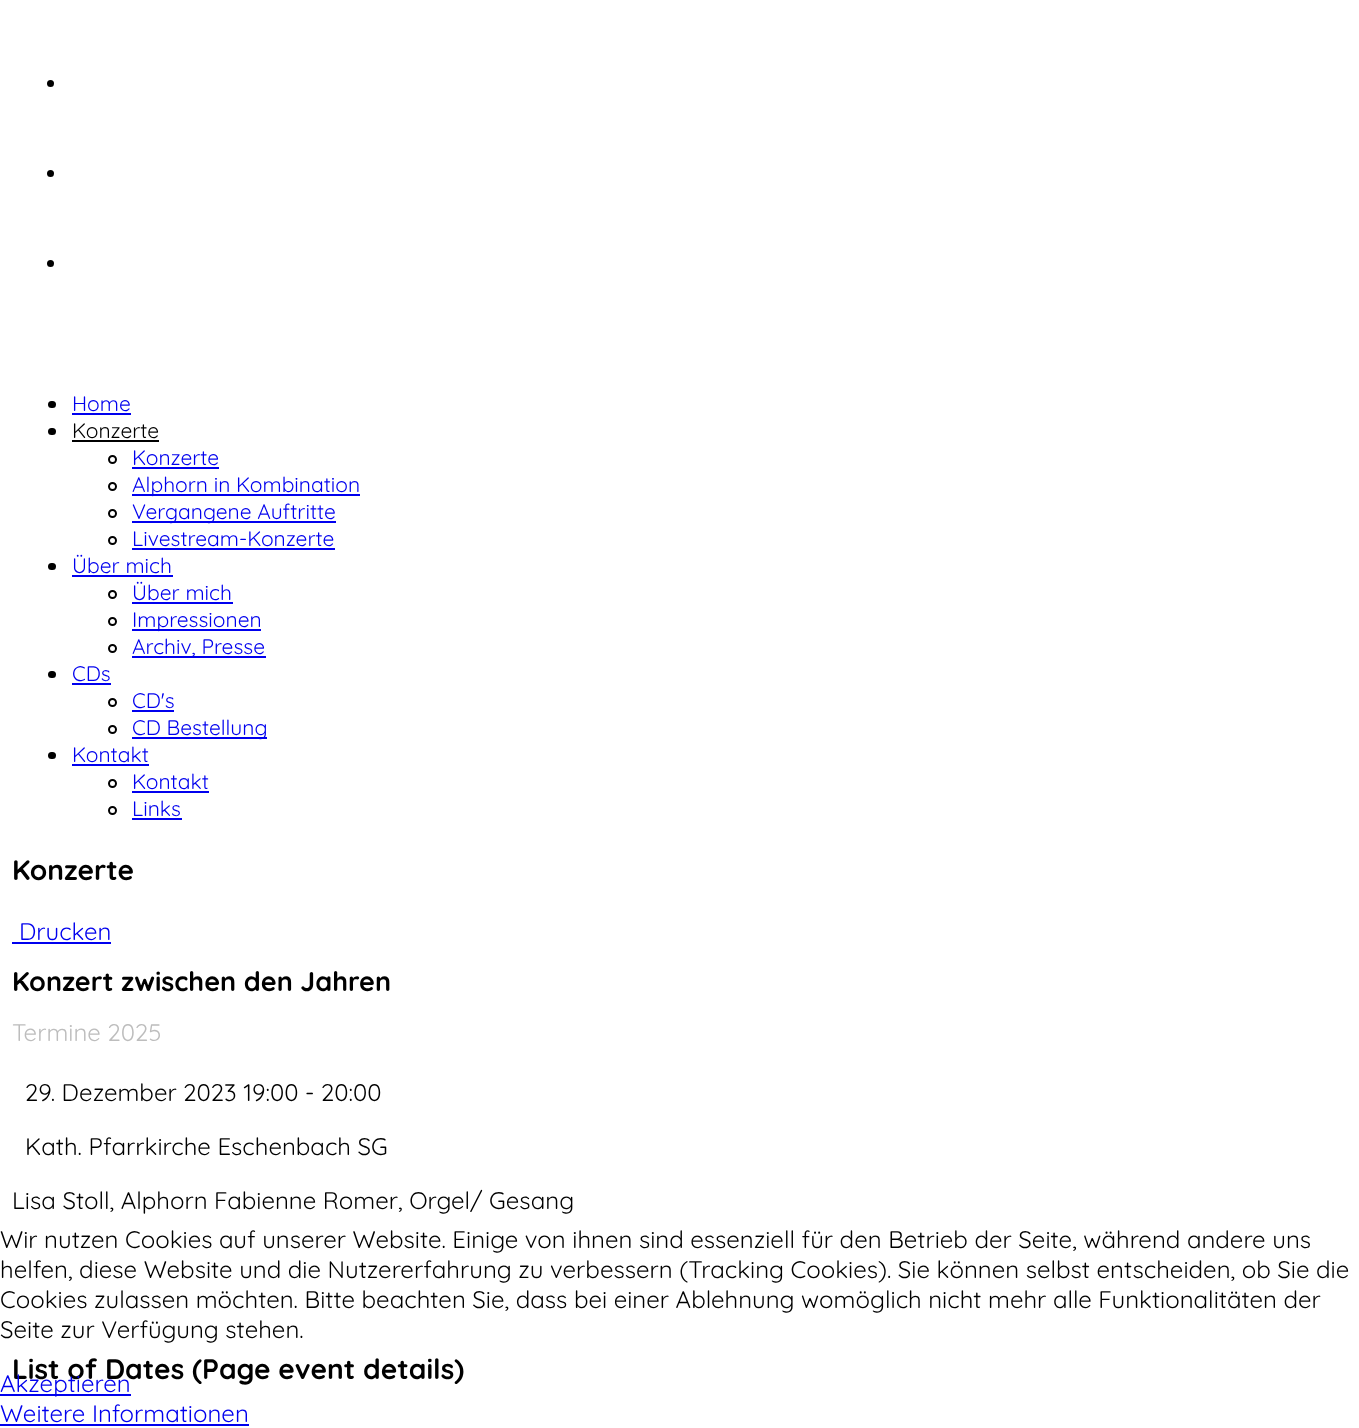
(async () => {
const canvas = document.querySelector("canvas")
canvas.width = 1359
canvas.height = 1428
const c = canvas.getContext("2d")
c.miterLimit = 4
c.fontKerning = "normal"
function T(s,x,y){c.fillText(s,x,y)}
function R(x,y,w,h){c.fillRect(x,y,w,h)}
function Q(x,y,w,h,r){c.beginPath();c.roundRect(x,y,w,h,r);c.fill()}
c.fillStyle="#fff"
R(0,0,1359,1428)
c.fillStyle="#000"
c.beginPath()
c.arc(50.5,83.5,3.5,0,7)
c.fill()
c.beginPath()
c.arc(50.5,173.5,3.5,0,7)
c.fill()
c.beginPath()
c.arc(50.5,263.5,3.5,0,7)
c.fill()
Q(48,401,8,7,3.5)
c.font="21px Quicksand"
c.fillStyle="#00e"
T("Home",72,411)
R(72,413,59,2)
c.fillStyle="#000"
Q(48,428,8,7,3.5)
T("Konzerte",72,438)
R(72,440,87,2)
c.beginPath()
c.arc(112.5,459.5,3.5,0,7)
c.strokeStyle="#000"
c.lineWidth=2
c.stroke()
c.fillStyle="#00e"
T("Konzerte",132,465)
R(132,467,87,2)
c.beginPath()
c.arc(112.5,486.5,3.5,0,7)
c.stroke()
R(132,494,228,2)
T("Alphorn in Kombination",132,492)
c.beginPath()
c.arc(112.5,513.5,3.5,0,7)
c.stroke()
R(132,521,204,2)
T("Vergangene Auftritte",132,519)
c.beginPath()
c.arc(112.5,540.5,3.5,0,7)
c.stroke()
T("Livestream-Konzerte",132,546)
R(132,548,203,2)
c.fillStyle="#000"
Q(48,563,8,7,3.5)
c.fillStyle="#00e"
T("Über mich",72,573)
R(72,575,101,2)
c.beginPath()
c.arc(112.5,594.5,3.5,0,7)
c.stroke()
T("Über mich",132,600)
R(132,602,101,2)
c.beginPath()
c.arc(112.5,621.5,3.5,0,7)
c.stroke()
R(132,629,129,2)
T("Impressionen",132,627)
c.beginPath()
c.arc(112.5,648.5,3.5,0,7)
c.stroke()
R(132,656,134,2)
T("Archiv, Presse",132,654)
c.fillStyle="#000"
Q(48,671,8,7,3.5)
c.fillStyle="#00e"
T("CDs",72,681)
R(72,683,39,2)
c.beginPath()
c.arc(112.5,702.5,3.5,0,7)
c.stroke()
T("CD's",132,708)
R(132,710,42,2)
c.beginPath()
c.arc(112.5,729.5,3.5,0,7)
c.stroke()
R(132,737,135,2)
T("CD Bestellung",132,735)
c.fillStyle="#000"
Q(48,752,8,7,3.5)
c.fillStyle="#00e"
T("Kontakt",72,762)
R(72,764,77,2)
c.beginPath()
c.arc(112.5,783.5,3.5,0,7)
c.stroke()
T("Kontakt",132,789)
R(132,791,77,2)
c.beginPath()
c.arc(112.5,810.5,3.5,0,7)
c.stroke()
T("Links",132,816)
R(132,818,50,2)
c.font="bold 28.1px Quicksand"
c.fillStyle="#000"
T("Konzerte",12,880)
c.font="24px Quicksand"
c.fillStyle="#00e"
T("Drucken",19,940)
R(12,942,99,2)
c.font="bold 27px Quicksand"
c.fillStyle="#000"
T("Konzert zwischen den Jahren",12,991)
c.font="24px Quicksand"
c.fillStyle="#bdbdbd"
T("Termine 2025",12,1041)
c.fillStyle="#000"
T("29. Dezember 2023 19:00 - 20:00",25,1101)
T("Kath. Pfarrkirche Eschenbach SG",25,1155)
T("Lisa Stoll, Alphorn Fabienne Romer, Orgel/ Gesang",12,1209)
c.font="bold 28.1px Quicksand"
T("List of Dates (Page event details)",12,1379)
c.font="24px Quicksand"
T("Wir nutzen Cookies auf unserer Website. Einige von ihnen sind essenziell für den Betrieb der Seite, während andere uns",0,1248)
T("helfen, diese Website und die Nutzererfahrung zu verbessern (Tracking Cookies). Sie können selbst entscheiden, ob Sie die",0,1278)
T("Cookies zulassen möchten. Bitte beachten Sie, dass bei einer Ablehnung womöglich nicht mehr alle Funktionalitäten der",0,1308)
T("Seite zur Verfügung stehen.",0,1338)
c.fillStyle="#00e"
R(0,1394,131,2)
T("Akzeptieren",0,1392)
T("Weitere Informationen",0,1422)
R(0,1424,249,2)
})()
